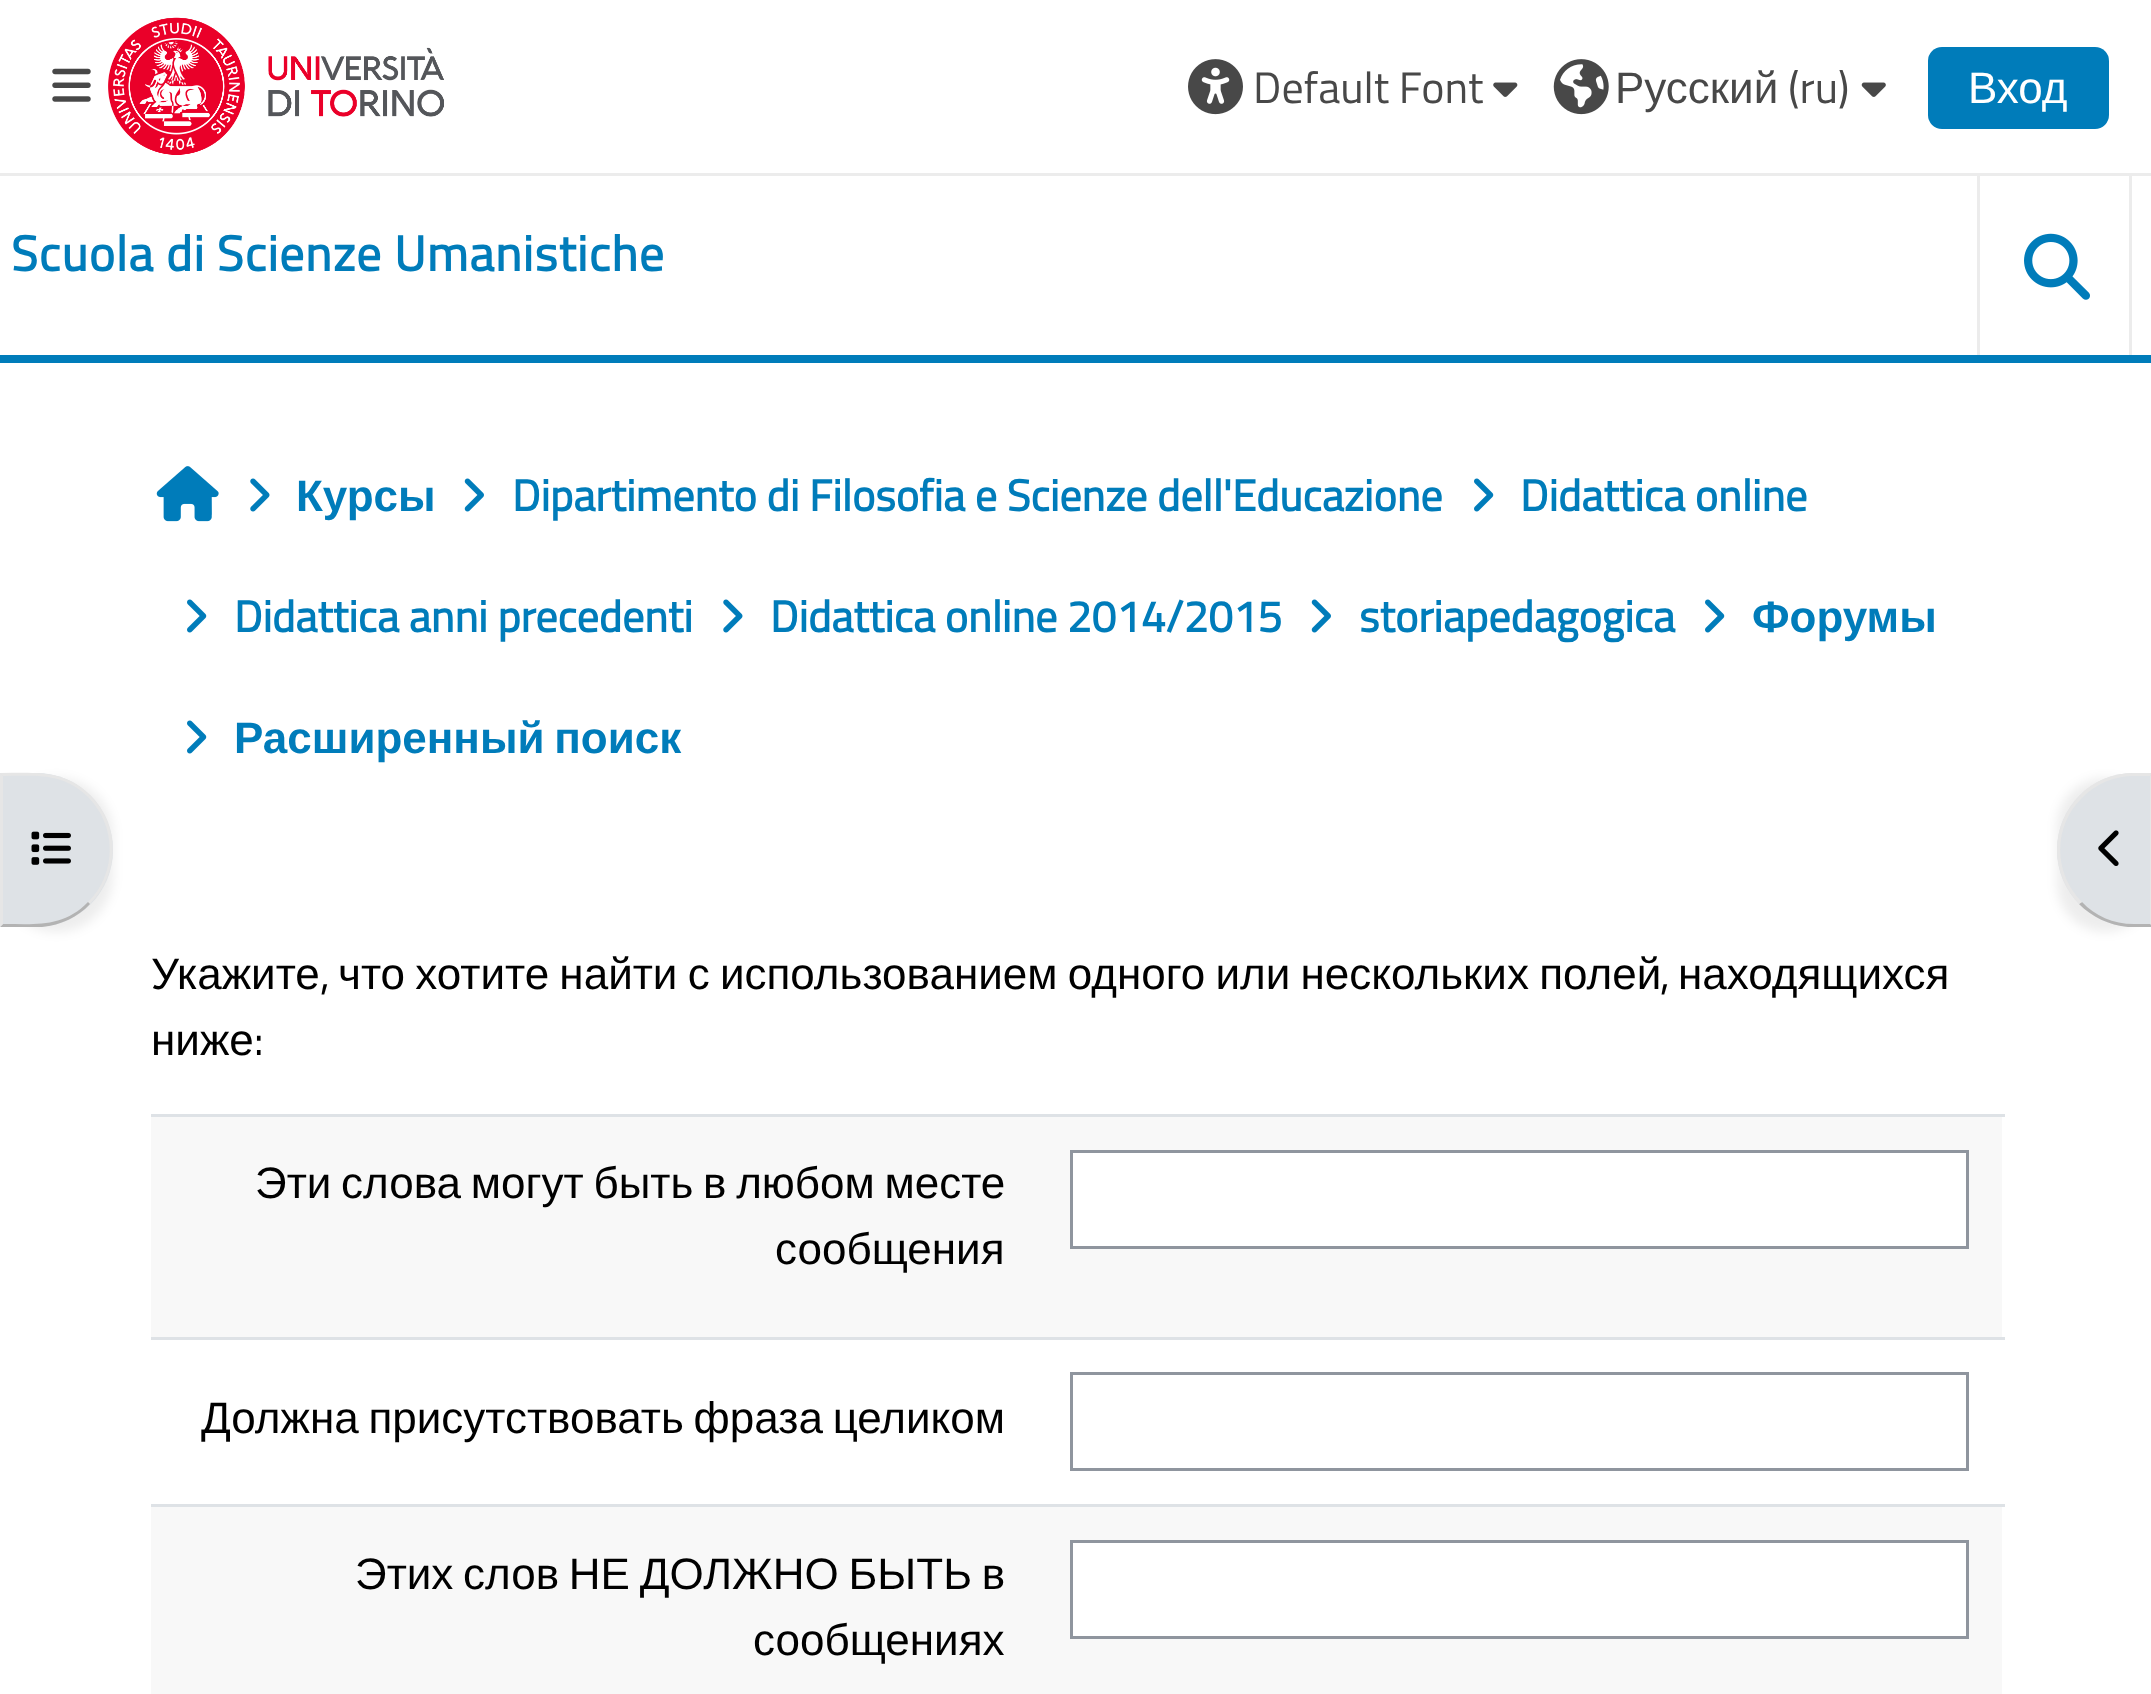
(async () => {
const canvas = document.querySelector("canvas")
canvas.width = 2151
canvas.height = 1694
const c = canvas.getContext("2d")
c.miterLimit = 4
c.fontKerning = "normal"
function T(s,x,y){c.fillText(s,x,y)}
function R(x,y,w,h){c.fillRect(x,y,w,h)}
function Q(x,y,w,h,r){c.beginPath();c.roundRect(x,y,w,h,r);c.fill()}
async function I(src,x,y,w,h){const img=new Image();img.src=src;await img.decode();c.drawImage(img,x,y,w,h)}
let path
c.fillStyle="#fff"
R(0,0,2151,1694)
c.fillStyle="#007cba"
R(0,355,2151,8)
c.fillStyle="#ececec"
R(0,173,2151,3)
await I("1.png",52,68,39,34)
await I("2.png",108,17,336,138)
await I("3.png",1188,59,55,56)
c.font="44px Titillium Web"
c.fillStyle="#484848"
T("Default Font",1253,103)
await I("4.png",1493,82,25,15)
await I("5.png",1553,59,56,56)
c.wordSpacing="-2.5px"
c.font="44px Liberation Sans"
T("Русский ",1615,103)
c.wordSpacing="0px"
c.font="44px Titillium Web"
T("(ru)",1788,103)
await I("6.png",1861,82,25,15)
c.fillStyle="#007cba"
Q(1928,47,181,82,14)
c.font="44px Liberation Sans"
c.fillStyle="#fff"
T("Вход",1968,103)
c.letterSpacing="1px"
c.font="bold 49.5px Titillium Web"
c.fillStyle="#007cba"
T("Scuola di Scienze Umanistiche",11,271)
c.fillStyle="#ececec"
R(2129,176,3,179)
R(1977,176,3,179)
await I("7.png",2024,233,66,67)
c.fillStyle="#00000012"
c.filter="blur(5.5px)"
c.beginPath()
c.roundRect(0,778,113,154,77)
c.fill()
c.filter="none"
c.fillStyle="#dee2e6"
c.beginPath()
c.roundRect(0,773,113,154,[0,77,77,0])
c.fill()
c.fillStyle="#e6e6e6"
path = new Path2D("M90 795c-26-26-56-22-90-22l3 3c32 0 60-4 85 21z")
c.fill(path)
path = new Path2D("M90 795c31 30 30 79 0 109l-2-2c29-28 29-76 0-105z")
c.fill(path)
c.fillStyle="#b3b3b3"
path = new Path2D("M42 927h-42l3-3c32 0 60 4 85-22l2 2c-12 13-29 21-48 23z")
c.fill(path)
c.fillStyle="#e6e6e6"
path = new Path2D("M3 776l-3-3v154l3-3z")
c.fill(path)
await I("8.png",31,831,40,34)
await I("9.png",156,466,63,56)
await I("10.png",250,478,20,34)
c.letterSpacing="0px"
c.font="bold 44px Liberation Sans"
c.fillStyle="#007cba"
T("Курсы",296,511)
await I("11.png",464,478,20,34)
c.font="bold 44px Titillium Web"
T("Dipartimento di Filosofia e Scienze dell'Educazione",512,511)
await I("12.png",1474,478,20,34)
T("Didattica online",1520,511)
await I("12.png",187,599,20,34)
T("Didattica anni precedenti",234,632)
await I("10.png",723,599,20,34)
T("Didattica online 2014/2015",770,632)
await I("11.png",1311,599,20,34)
T("storiapedagogica",1359,632)
await I("12.png",1705,599,20,34)
c.font="bold 44px Liberation Sans"
T("Форумы",1752,632)
await I("12.png",187,720,20,34)
c.wordSpacing="-2.5px"
T("Расширенный поиск",234,753)
c.wordSpacing="0px"
c.font="44px Liberation Sans"
c.fillStyle="#000"
T("Укажите",151,989)
c.font="44px Titillium Web"
T(",",320,989)
c.wordSpacing="-2px"
c.font="44px Liberation Sans"
T("что хотите найти с использованием одного или нескольких полей",338,989)
c.wordSpacing="0px"
c.font="44px Titillium Web"
T(",",1660,989)
c.font="44px Liberation Sans"
T("находящихся",1678,989)
T("ниже",151,1055)
c.font="44px Titillium Web"
T(":",254,1055)
c.fillStyle="#f8f8f8"
R(151,1117,1851,220)
c.fillStyle="#dee2e6"
R(151,1114,1854,3)
c.fillStyle="#fff"
c.beginPath()
c.rect(1071.5,1151.5,896,96)
c.fill()
c.strokeStyle="#8f959e"
c.lineWidth=3
c.stroke()
c.wordSpacing="-2.5px"
c.font="44px Liberation Sans"
c.fillStyle="#000"
T("Эти слова могут быть в любом месте",255,1198)
c.wordSpacing="0px"
T("сообщения",775,1264)
c.fillStyle="#dee2e6"
R(151,1337,1854,3)
c.strokeRect(1071.5,1373.5,896,96)
c.wordSpacing="-2.5px"
c.fillStyle="#000"
T("Должна присутствовать фраза целиком",201,1433)
c.fillStyle="#f8f8f8"
R(151,1507,1851,187)
c.fillStyle="#dee2e6"
R(151,1504,1854,3)
c.fillStyle="#fff"
c.beginPath()
c.rect(1071.5,1541.5,896,96)
c.fill()
c.stroke()
c.fillStyle="#000"
T("Этих слов НЕ ДОЛЖНО БЫТЬ в",355,1589)
c.wordSpacing="0px"
T("сообщениях",753,1655)
c.fillStyle="#00000012"
c.filter="blur(5.5px)"
c.beginPath()
c.roundRect(2057,778,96,154,77)
c.fill()
c.filter="none"
c.fillStyle="#dee2e6"
path = new Path2D("M2134 773h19v154h-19c-42.5 0-77-34.5-77-77c0-42.5 34.5-77 77-77z")
c.fill(path)
c.fillStyle="#e6e6e6"
path = new Path2D("M2134 773c-21 0-41 8-54 22l2 3c13-14 32-22 52-22h16l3-3z")
c.fill(path)
path = new Path2D("M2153 926v-153l-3 3v148z")
c.fill(path)
c.fillStyle="#b3b3b3"
path = new Path2D("M2128 927c-19-2-36-10-49-23l3-2c13 14 31 22 52 22h16l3 3z")
c.fill(path)
c.fillStyle="#e6e6e6"
path = new Path2D("M2057 850c0 21 9 40 22 54l3-2c-29-29-29-76 0-104l-2-3c-14 14-23 33-23 55z")
c.fill(path)
await I("13.png",2098,830,21,36)
})()
